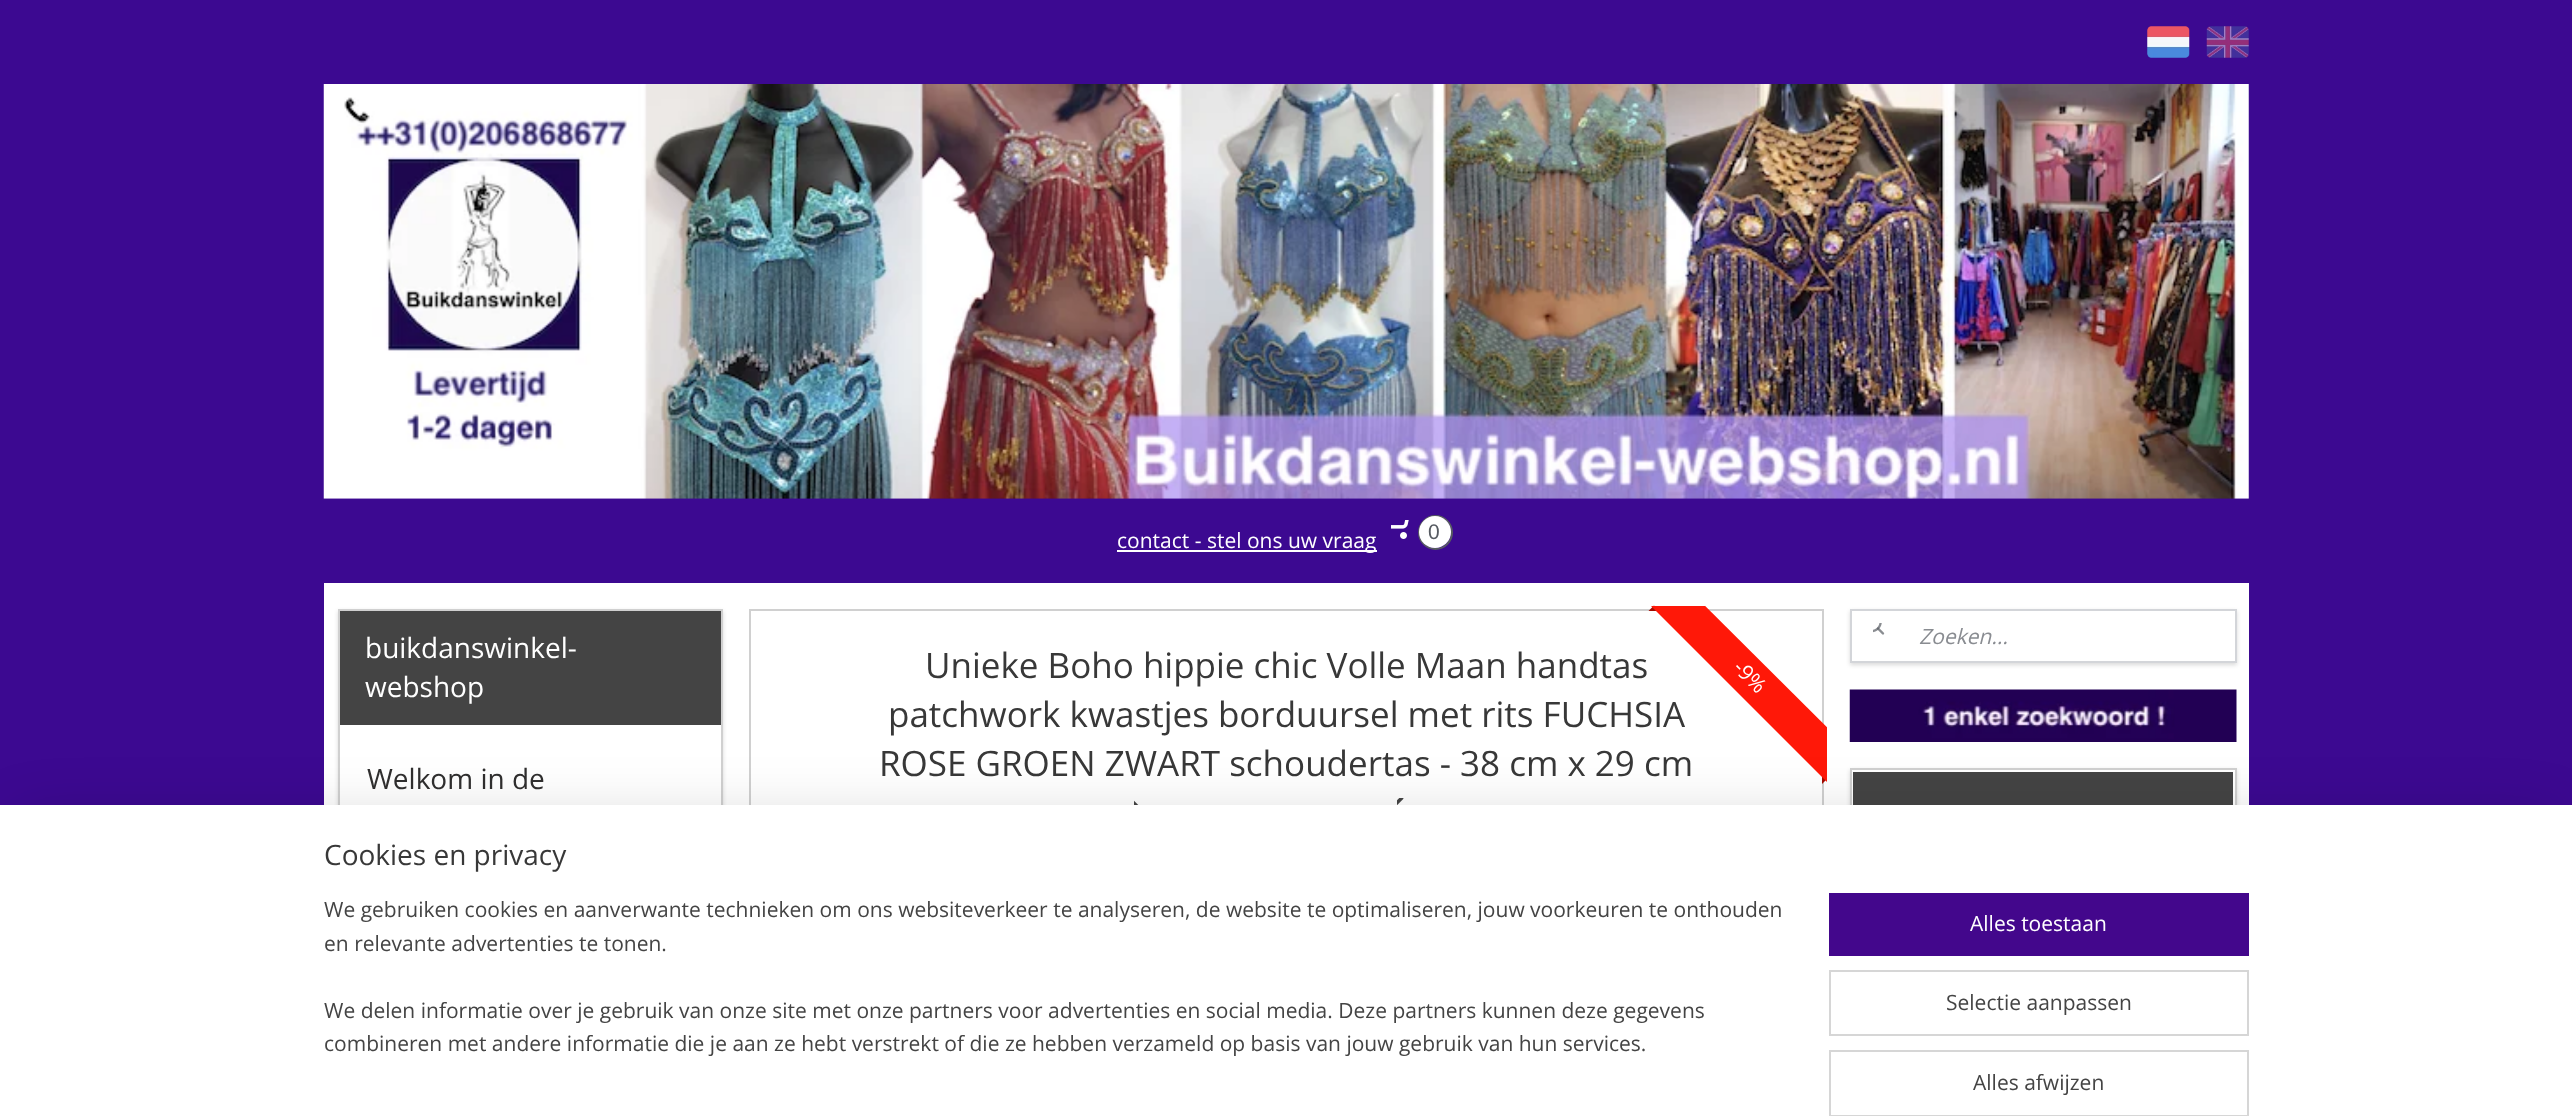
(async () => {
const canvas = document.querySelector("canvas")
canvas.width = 2572
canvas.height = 1116
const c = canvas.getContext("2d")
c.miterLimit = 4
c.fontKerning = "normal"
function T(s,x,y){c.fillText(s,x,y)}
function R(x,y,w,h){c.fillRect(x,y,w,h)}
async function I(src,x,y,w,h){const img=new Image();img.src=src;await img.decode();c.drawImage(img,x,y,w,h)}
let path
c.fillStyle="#3c0991"
R(0,0,2572,1116)
await I("1.png",2147,26,43,32)
await I("2.png",2206,26,43,32)
await I("3.png",323,84,1926,415)
c.fillStyle="#fff"
R(1117,550,260,2)
c.font="21px Open Sans"
T("contact - stel ons uw vraag",1117,548)
await I("4.png",1391,520,18,19)
c.beginPath()
c.arc(1435.5,532.5,16.5,0,7)
c.strokeStyle="#575b62"
c.lineWidth=2
c.stroke()
c.beginPath()
c.arc(1435,532,16,0,7)
c.fill()
c.font="21px Liberation Sans"
c.fillStyle="#575b62"
T("0",1428,539)
c.fillStyle="#fff"
R(324,583,1925,222)
c.fillStyle="#00000026"
c.filter="blur(2px)"
c.beginPath()
c.rect(338,611,385,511)
c.fill()
c.filter="none"
c.fillStyle="#fff"
R(340,725,381,80)
c.strokeStyle="#d0d0d0"
c.strokeRect(339,610,383,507)
c.fillStyle="#444"
R(340,611,381,114)
c.font="28px Open Sans"
c.fillStyle="#fff"
T("buikdanswinkel-",365,658)
T("webshop",365,697)
c.fillStyle="#302f2f"
T("Welkom in de",367,789)
c.strokeRect(750,610,1073,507)
c.font="35px Open Sans"
c.fillStyle="#383838"
T("Unieke Boho hippie chic Volle Maan handtas",925,678)
T("patchwork kwastjes borduursel met rits FUCHSIA",888,727)
T("ROSE GROEN ZWART schoudertas - 38 cm x 29 cm",879,776)
c.fillStyle="#a10a00"
path = new Path2D("M1659 611h-10.5l5.5-5.5z")
c.fill(path)
path = new Path2D("M1822 784v-10.5l5 5.5z")
c.fill(path)
c.save()
c.beginPath()
c.rect(1617,606,210,210)
c.clip()
c.fillStyle="#ff1808"
path = new Path2D("M1670 571l186 185l-27 28l-186-186z")
c.fill(path)
c.restore()
c.font="21px Open Sans"
c.fillStyle="#fff"
c.save()
c.translate(1732,669)
c.rotate(45 * Math.PI / 180)
c.fillText("-9%",0,0)
c.restore()
await I("5.png",1134,800,5,5)
await I("6.png",1397,798,7,7)
c.fillStyle="#00000026"
c.filter="blur(2px)"
c.beginPath()
c.rect(1850,611,387,54)
c.fill()
c.filter="none"
c.fillStyle="#fff"
c.beginPath()
c.rect(1851,610,385,52)
c.fill()
c.strokeStyle="#d3d5d9"
c.stroke()
await I("7.png",1873,623,12,12)
c.font="italic 21px Open Sans"
c.fillStyle="#898c91"
T("Zoeken...",1919,644)
await I("8.png",1849,689,388,53)
c.fillStyle="#00000026"
c.filter="blur(2px)"
c.beginPath()
c.rect(1850,770,387,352)
c.fill()
c.filter="none"
c.fillStyle="#fff"
R(1852,770,383,35)
c.strokeStyle="#d0d0d0"
c.strokeRect(1851,769,385,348)
c.fillStyle="#444"
R(1853,772,380,33)
c.fillStyle="#00000033"
c.filter="blur(31.5px)"
c.beginPath()
c.rect(18,823,2537,276)
c.fill()
c.filter="none"
c.fillStyle="#fff"
R(0,805,2572,311)
c.font="28px Open Sans"
c.fillStyle="#383838"
T("Cookies en privacy",324,865)
c.font="21px Open Sans"
c.fillStyle="#444"
T("We gebruiken cookies en aanverwante technieken om ons websiteverkeer te analyseren, de website te optimaliseren, jouw voorkeuren te onthouden",324,917)
T("en relevante advertenties te tonen.",324,951)
T("We delen informatie over je gebruik van onze site met onze partners voor advertenties en social media. Deze partners kunnen deze gegevens",324,1018)
T("combineren met andere informatie die je aan ze hebt verstrekt of die ze hebben verzameld op basis van jouw gebruik van hun services.",324,1051)
c.fillStyle="#43078c"
R(1829,893,420,63)
c.fillStyle="#fff"
T("Alles toestaan",1970,931)
c.strokeStyle="#d6d6d6"
c.strokeRect(1830,971,418,64)
c.fillStyle="#444"
T("Selectie aanpassen",1946,1010)
c.strokeRect(1830,1051,418,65)
T("Alles afwijzen",1973,1090)
})()
